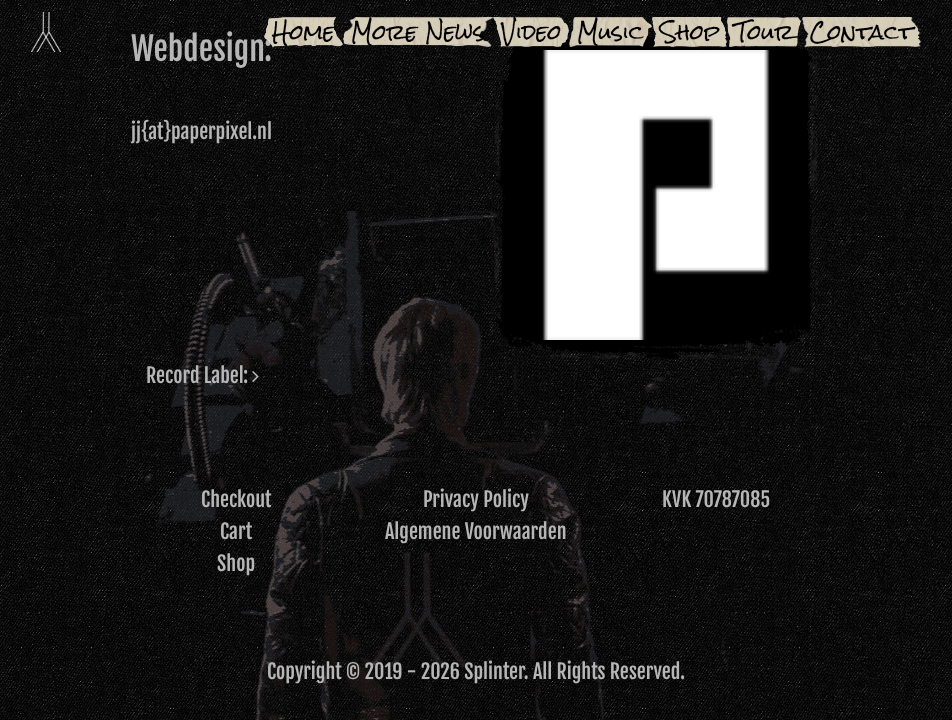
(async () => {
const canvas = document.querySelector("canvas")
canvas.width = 952
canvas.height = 720
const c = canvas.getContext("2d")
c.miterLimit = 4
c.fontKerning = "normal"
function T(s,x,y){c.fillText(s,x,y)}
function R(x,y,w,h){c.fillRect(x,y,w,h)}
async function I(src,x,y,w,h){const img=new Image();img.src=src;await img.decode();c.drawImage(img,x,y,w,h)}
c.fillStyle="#fff"
R(0,0,952,720)
await I("1.png",0,0,952,720)
c.font="32px Fjalla One"
c.fillStyle="#b7b6b6"
T("Webdesign:",131,61)
c.font="20px Fjalla One"
T("jj{at}paperpixel.nl",131,139)
await I("2.png",491,30,328,330)
await I("3.png",542,50,228,290)
T("Record Label:",146,383)
await I("4.png",252,371,7,12)
await I("5.png",31,12,30,40)
await I("6.png",264,17,79,30)
c.font="20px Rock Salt"
c.fillStyle="#000"
T("Home",272,40)
await I("7.png",343,17,150,30)
T("More News",351,40)
await I("8.png",493,17,76,30)
T("Video",501,40)
await I("9.png",569,17,83,30)
T("Music",577,40)
await I("10.png",652,17,75,30)
T("Shop",660,40)
await I("11.png",727,17,74,30)
T("Tour",735,40)
await I("12.png",802,17,119,30)
T("Contact",810,40)
c.font="20px Fjalla One"
c.fillStyle="#b7b6b6"
T("Checkout",201,507)
T("Cart",220,539)
T("Shop",217,571)
T("Privacy Policy",423,507)
T("Algemene Voorwaarden",385,539)
T("KVK 70787085",662,507)
T("Copyright © 2019 - 2026 Splinter. All Rights Reserved.",267,679)
})()
